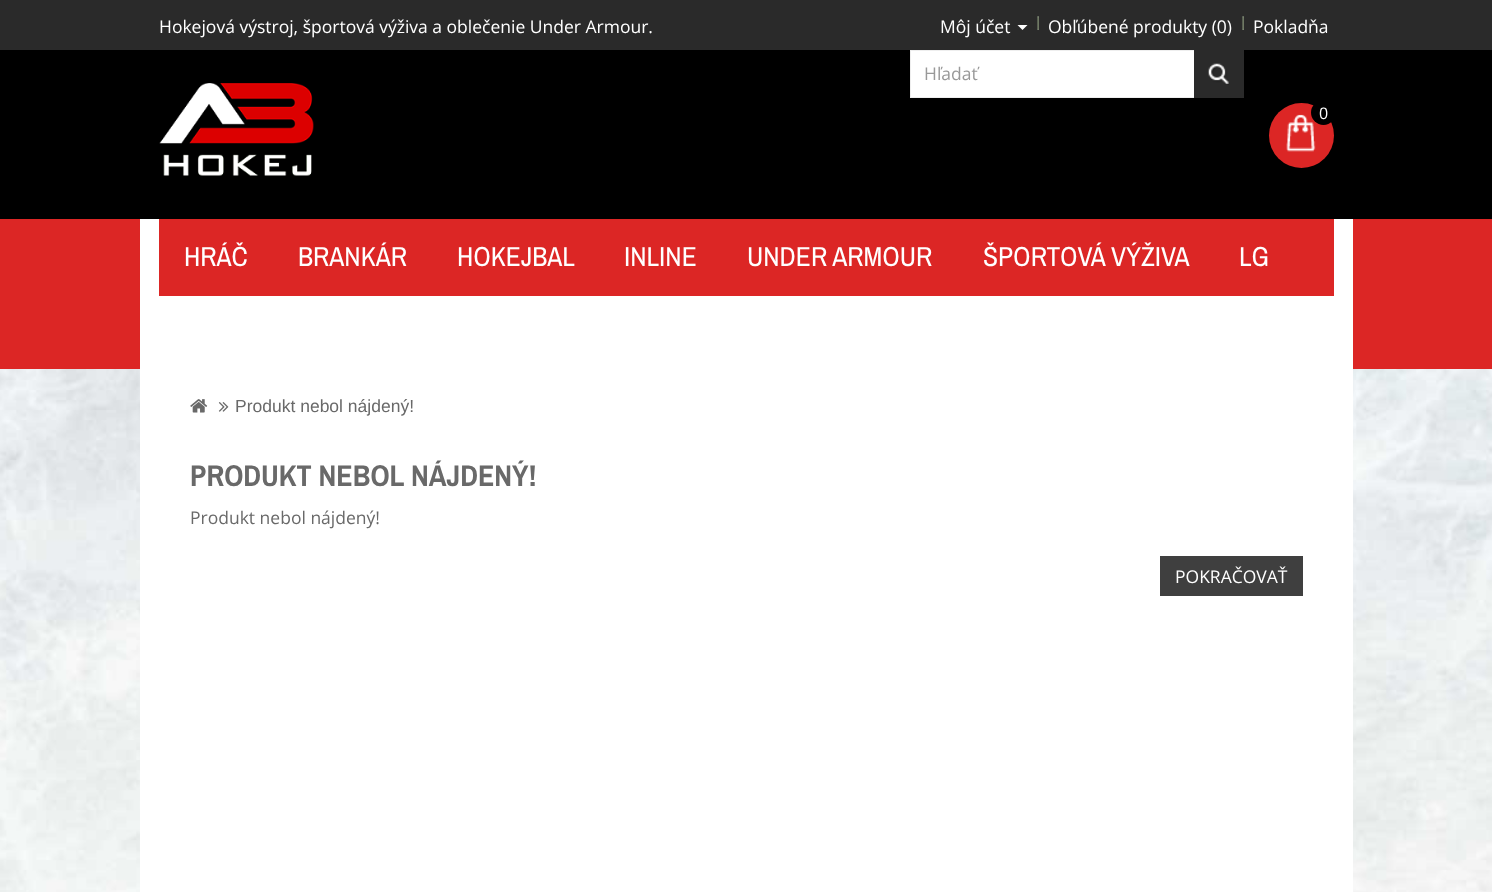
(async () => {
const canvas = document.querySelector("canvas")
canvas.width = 1492
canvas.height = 892
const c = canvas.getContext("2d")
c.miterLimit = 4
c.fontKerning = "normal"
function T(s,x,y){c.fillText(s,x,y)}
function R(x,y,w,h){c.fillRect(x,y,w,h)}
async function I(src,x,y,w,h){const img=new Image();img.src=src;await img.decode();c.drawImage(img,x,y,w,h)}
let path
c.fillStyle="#fff"
R(0,0,1492,892)
await I("1.png",0,369,1492,523)
c.fillStyle="#2a2a2a"
R(0,0,1492,50)
c.font="17.5px Open Sans"
c.fillStyle="#fff"
T("Hokejová výstroj, športová výživa a oblečenie Under Armour.",159,33)
T("Môj účet",940,33)
path = new Path2D("M1017.5 25h10l-5 5z")
c.fill(path)
await I("2.png",1037,16,2,14)
T("Obľúbené produkty (0)",1048,33)
await I("2.png",1242,16,2,14)
T("Pokladňa",1253,33)
c.fillStyle="#000"
R(0,50,1492,169)
await I("3.png",159,83,155,93)
c.fillStyle="#fff"
R(911,51,283,46)
c.strokeStyle="#eee"
c.strokeRect(910.5,50.5,312,47)
c.fillStyle="#999"
T("Hľadať",924,80)
c.fillStyle="#2a2a2a"
R(1194,50,50,48)
await I("4.png",1208,63,21,22)
c.fillStyle="#dc2625"
c.beginPath()
c.arc(1301.5,135.5,32.5,0,7)
c.fill()
await I("5.png",1286,114,30,38)
c.fillStyle="#000"
c.beginPath()
c.arc(1323.5,112.5,12.5,0,7)
c.fill()
c.font="16px Open Sans"
c.fillStyle="#fff"
T("0",1319,119)
c.fillStyle="#dc2625"
R(0,219,1492,150)
c.fillStyle="#fff"
R(140,219,1213,673)
c.fillStyle="#dc2625"
R(159,219,1175,77)
c.font="27.5px Archivo Narrow"
c.fillStyle="#fff"
T("HRÁČ",184,266)
T("BRANKÁR",298,266)
T("HOKEJBAL",457,266)
T("INLINE",624,266)
T("UNDER ARMOUR",747,266)
T("ŠPORTOVÁ VÝŽIVA",983,266)
T("LG",1239,266)
await I("6.png",190,399,18,14)
await I("7.png",218,402,11,10)
c.font="17.5px Liberation Sans"
c.fillStyle="#696969"
T("Produkt nebol nájdený!",235,412)
c.font="bold 30px Archivo Narrow"
T("PRODUKT NEBOL NÁJDENÝ!",190,486)
c.font="17.5px Open Sans"
T("Produkt nebol nájdený!",190,524)
c.fillStyle="#3f3f3f"
R(1160,556,143,40)
c.fillStyle="#fff"
T("POKRAČOVAŤ",1175,583)
})()
